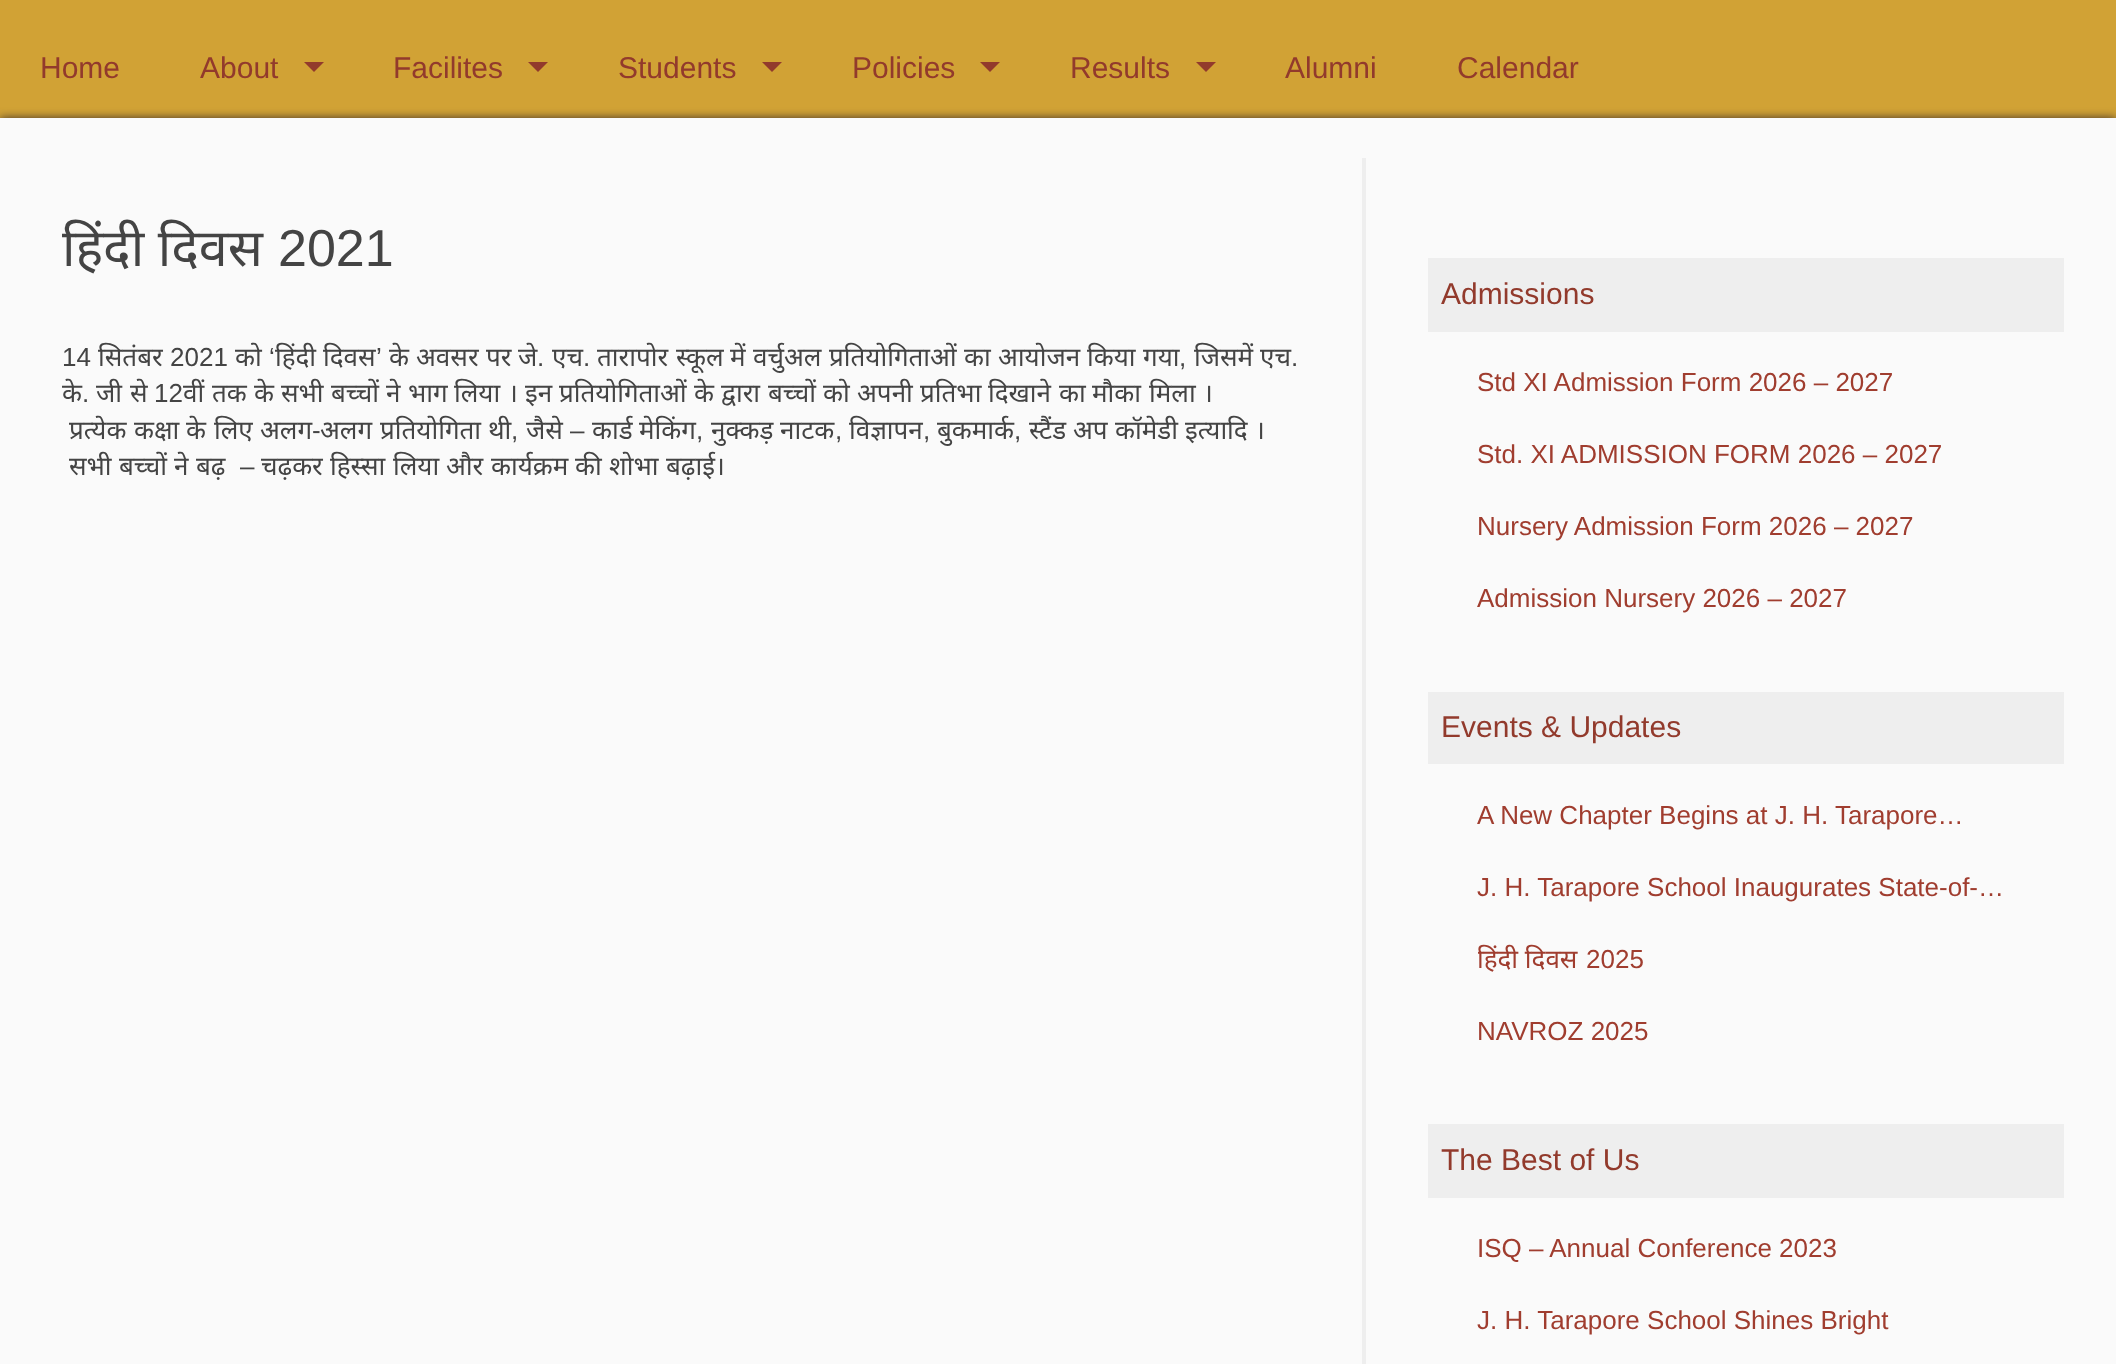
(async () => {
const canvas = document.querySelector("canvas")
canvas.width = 2116
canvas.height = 1364
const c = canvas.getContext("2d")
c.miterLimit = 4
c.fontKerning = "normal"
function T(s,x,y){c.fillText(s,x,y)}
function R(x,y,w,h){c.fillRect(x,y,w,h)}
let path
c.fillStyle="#d1a235"
R(0,0,2116,1364)
c.font="30px Liberation Sans"
c.fillStyle="#923a2c"
T("Home",40,78)
T("About",200,78)
path = new Path2D("M304 62h20l-10 10z")
c.fill(path)
T("Facilites",393,78)
path = new Path2D("M528 62h20l-10 10z")
c.fill(path)
T("Students",618,78)
path = new Path2D("M762 62h20l-10 10z")
c.fill(path)
T("Policies",852,78)
path = new Path2D("M980 62h20l-10 10z")
c.fill(path)
T("Results",1070,78)
path = new Path2D("M1196 62h20l-10 10z")
c.fill(path)
T("Alumni",1285,78)
T("Calendar",1457,78)
c.fillStyle="#40312a"
c.filter="blur(5px)"
c.beginPath()
c.rect(0,118,2116,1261)
c.fill()
c.filter="none"
c.fillStyle="#fafafa"
R(0,118,2116,1246)
c.fillStyle="#eee"
R(1362,158,4,1206)
c.font="52px Noto Sans"
c.fillStyle="#444"
T("हिंदी दिवस",62,266)
c.font="52px Liberation Sans"
T("2021",278,266)
c.font="26px Liberation Sans"
T("14",62,366)
c.font="26px Noto Sans"
T("सितंबर",98,366)
c.font="26px Liberation Sans"
T("2021",170,366)
c.font="26px Noto Sans"
T("को",235,366)
c.font="26px Liberation Sans"
T("‘",269,366)
c.font="26px Noto Sans"
T("हिंदी",275,366)
T("दिवस",323,366)
c.font="26px Liberation Sans"
T("’",376,366)
c.font="26px Noto Sans"
T("के",389,366)
T("पर",486,366)
T("जे",518,366)
T("तारापोर",597,366)
T("स्कूल",676,366)
T("में",730,366)
T("वर्चुअल",753,366)
T("प्रतियोगिताओं",829,366)
T("आयोजन",998,366)
T("किया",1087,366)
T("जिसमें",1194,366)
T("अवसर",416,366)
c.font="26px Liberation Sans"
T(".",537,366)
c.font="26px Noto Sans"
T("एच",552,366)
c.font="26px Liberation Sans"
T(".",583,366)
c.font="26px Noto Sans"
T("का",964,366)
T("गया",1143,366)
c.font="26px Liberation Sans"
T(",",1179,366)
c.font="26px Noto Sans"
T("एच",1260,366)
c.font="26px Liberation Sans"
T(".",1291,366)
c.font="26px Noto Sans"
T("के",62,402)
c.font="26px Liberation Sans"
T(".",82,402)
c.font="26px Noto Sans"
T("जी",96,402)
T("से",130,402)
c.font="26px Liberation Sans"
T("12",154,402)
c.font="26px Noto Sans"
T("वीं",183,402)
T("तक",212,402)
T("के",254,402)
T("सभी",281,402)
T("बच्चों",331,402)
T("ने",386,402)
T("भाग",408,402)
T("लिया",454,402)
T("।",508,402)
T("इन",525,402)
T("प्रतियोगिताओं",559,402)
T("के",694,402)
T("द्वारा",721,402)
T("बच्चों",768,402)
T("को",823,402)
T("अपनी",857,402)
T("प्रतिभा",920,402)
T("दिखाने",988,402)
T("का",1059,402)
T("मौका",1092,402)
T("मिला",1149,402)
T("।",1203,402)
T("प्रत्येक",69,439)
T("कक्षा",134,439)
T("के",186,439)
T("लिए",214,439)
T("अलग",260,439)
c.font="26px Liberation Sans"
T("-",312,439)
c.font="26px Noto Sans"
T("अलग",320,439)
T("प्रतियोगिता",380,439)
T("थी",488,439)
c.font="26px Liberation Sans"
T(",",511,439)
c.font="26px Noto Sans"
T("जैसे",526,439)
c.font="26px Liberation Sans"
T("–",570,439)
c.font="26px Noto Sans"
T("कार्ड",592,439)
T("मेकिंग",639,439)
c.font="26px Liberation Sans"
T(",",696,439)
c.font="26px Noto Sans"
T("नुक्कड़",711,439)
T("नाटक",780,439)
T("विज्ञापन",849,439)
c.font="26px Liberation Sans"
T(",",923,439)
c.font="26px Noto Sans"
T("बुकमार्क",937,439)
T("स्टैंड",1029,439)
T("अप",1073,439)
T("कॉमेडी",1115,439)
T("इत्यादि",1185,439)
T("।",1255,439)
c.font="26px Liberation Sans"
T(",",835,439)
T(",",1014,439)
c.font="26px Noto Sans"
T("सभी",69,475)
T("बच्चों",119,475)
T("ने",174,475)
T("बढ़",196,475)
c.font="26px Liberation Sans"
T("–",240,475)
c.font="26px Noto Sans"
T("चढ़कर",261,475)
T("हिस्सा",330,475)
T("लिया",393,475)
T("और",446,475)
T("कार्यक्रम",491,475)
T("की",575,475)
T("शोभा",609,475)
T("बढ़ाई।",666,475)
c.fillStyle="#eee"
R(1428,258,636,74)
c.font="30px Liberation Sans"
c.fillStyle="#923a2c"
T("Admissions",1441,304)
c.font="26px Liberation Sans"
c.fillStyle="#a03d2f"
T("Std XI Admission Form 2026 – 2027",1477,391)
T("Std. XI ADMISSION FORM 2026 – 2027",1477,463)
T("Nursery Admission Form 2026 – 2027",1477,535)
T("Admission Nursery 2026 – 2027",1477,607)
c.fillStyle="#eee"
R(1428,692,636,72)
c.font="30px Liberation Sans"
c.fillStyle="#923a2c"
T("Events & Updates",1441,737)
c.font="26px Liberation Sans"
c.fillStyle="#a03d2f"
T("A New Chapter Begins at J. H. Tarapore…",1477,824)
T("J. H. Tarapore School Inaugurates State-of-…",1477,896)
c.save()
c.beginPath()
c.rect(1478,944,536,30)
c.clip()
c.font="26px Noto Sans"
T("हिंदी दिवस",1477,968)
c.restore()
T("2025",1586,968)
T("NAVROZ 2025",1477,1040)
c.fillStyle="#eee"
R(1428,1124,636,74)
c.font="30px Liberation Sans"
c.fillStyle="#923a2c"
T("The Best of Us",1441,1170)
c.font="26px Liberation Sans"
c.fillStyle="#a03d2f"
T("ISQ – Annual Conference 2023",1477,1257)
T("J. H. Tarapore School Shines Bright",1477,1329)
})()
